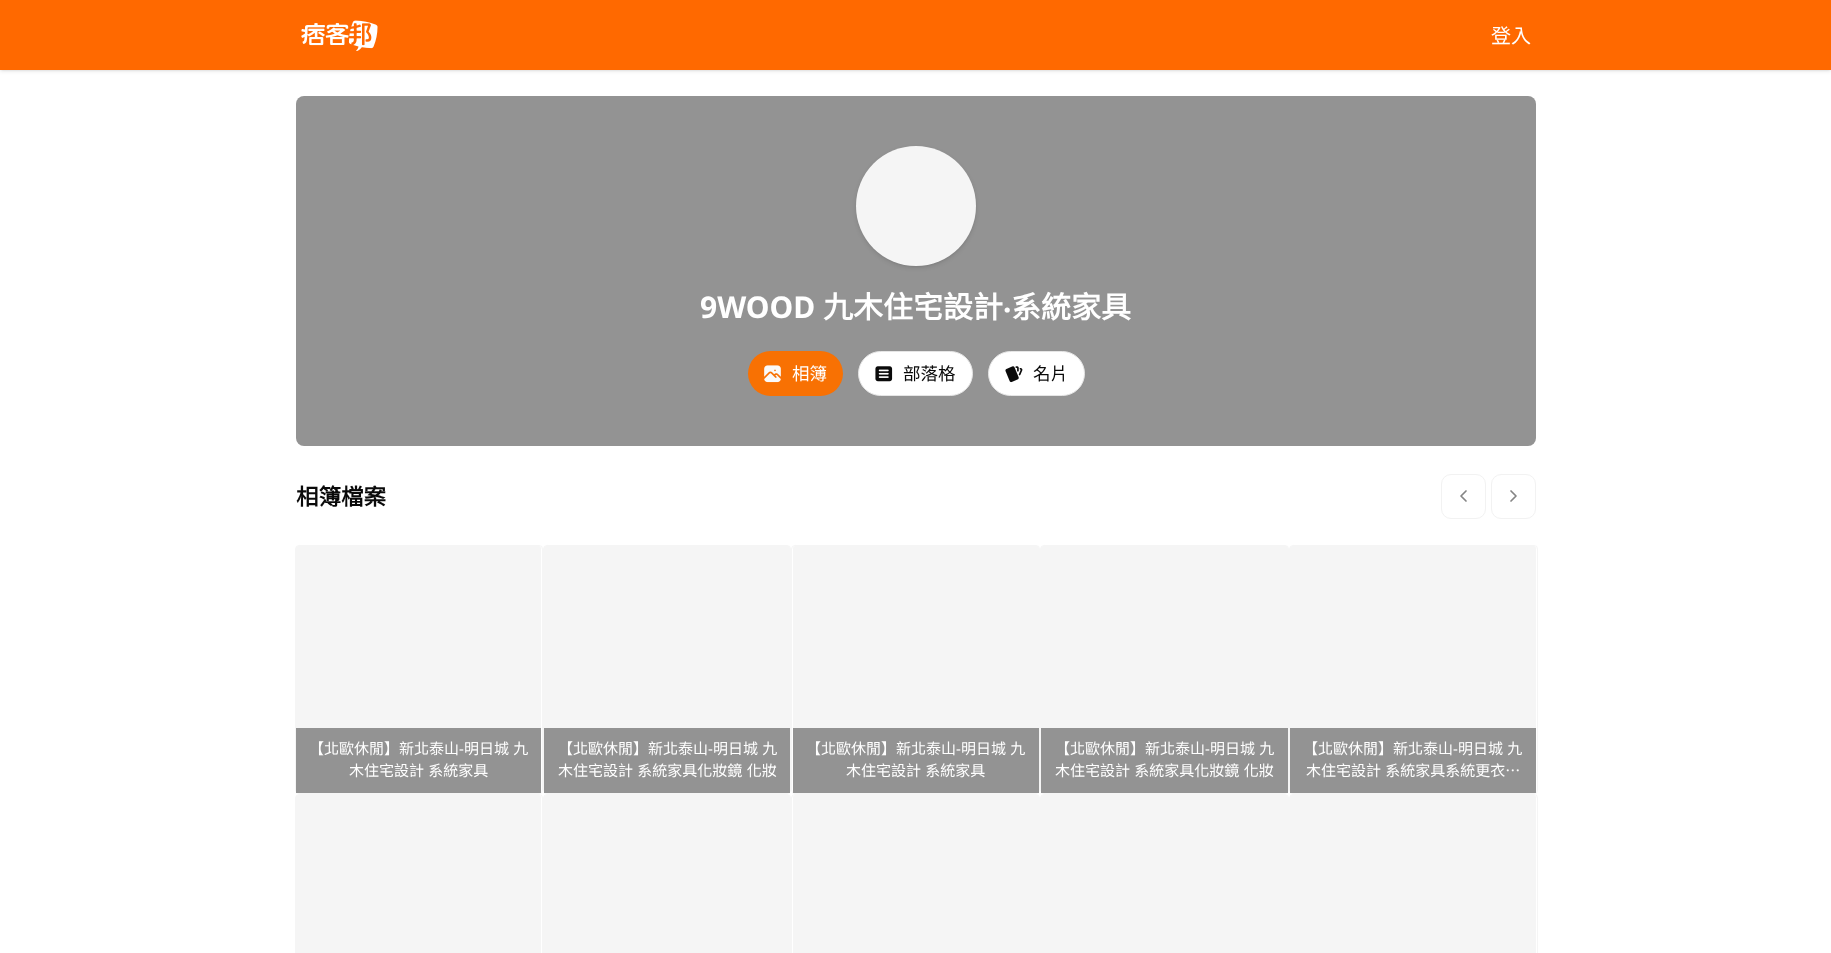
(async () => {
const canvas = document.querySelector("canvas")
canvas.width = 1831
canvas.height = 953
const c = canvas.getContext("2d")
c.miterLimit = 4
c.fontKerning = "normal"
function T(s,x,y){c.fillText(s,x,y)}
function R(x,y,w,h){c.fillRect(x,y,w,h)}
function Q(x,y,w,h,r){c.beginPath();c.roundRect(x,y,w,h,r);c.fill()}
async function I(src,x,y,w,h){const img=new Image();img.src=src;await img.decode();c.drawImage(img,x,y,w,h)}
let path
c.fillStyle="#fff"
R(0,0,1831,953)
c.fillStyle="#0000001a"
c.filter="blur(1px)"
c.beginPath()
c.rect(1,3,1829,67)
c.fill()
c.filter="none"
c.filter="blur(2px)"
c.beginPath()
c.rect(0,1,1831,70)
c.fill()
c.filter="none"
c.fillStyle="#ff6900"
R(0,0,1831,70)
await I("1.png",301,20,77,31)
c.font="20px Noto Sans CJK TC"
c.fillStyle="#fff"
T("登入",1491,43)
c.fillStyle="#f5f5f5"
Q(296,96,1240,350,8)
c.fillStyle="#00000066"
Q(296,96,1240,350,8)
c.fillStyle="#0000001a"
c.filter="blur(1px)"
c.beginPath()
c.roundRect(858,149,117,117,58.5)
c.fill()
c.filter="none"
c.filter="blur(2px)"
c.beginPath()
c.roundRect(856,148,120,120,60)
c.fill()
c.filter="none"
c.fillStyle="#f5f5f5"
c.beginPath()
c.arc(916,206,60,0,7)
c.fill()
c.font="bold 30px Noto Sans"
c.fillStyle="#fff"
T("9WOOD",700,318)
c.font="bold 30px Noto Sans CJK TC"
T("九木住宅設計",823,318)
c.font="bold 30px Noto Sans"
T("‧",1003,318)
c.font="bold 30px Noto Sans CJK TC"
T("系統家具",1011,318)
c.fillStyle="#f87103"
Q(748,351,95,45,22.5)
await I("2.png",764,365,17,18)
c.font="17.5px Noto Sans CJK TC"
c.fillStyle="#fff"
T("相簿",792,380)
c.beginPath()
c.roundRect(858.5,351.5,114,44,22)
c.fill()
c.strokeStyle="#e5e5e5"
c.stroke()
await I("3.png",875,366,18,16)
c.fillStyle="#0a0a0a"
T("部落格",903,380)
c.fillStyle="#fff"
c.beginPath()
c.roundRect(988.5,351.5,96,44,22)
c.fill()
c.stroke()
await I("4.png",1005,366,18,17)
c.fillStyle="#0a0a0a"
T("名片",1033,380)
c.font="bold 22.5px Noto Sans CJK TC"
T("相簿檔案",296,505)
c.beginPath()
c.roundRect(1441.5,474.5,44,44,9.5)
c.strokeStyle="#f2f2f2"
c.stroke()
path = new Path2D("M1466 501l-5-5l5-5")
c.strokeStyle="#858585"
c.lineWidth=1.7
c.lineCap="round"
c.lineJoin="round"
c.stroke(path)
c.beginPath()
c.roundRect(1491.5,474.5,44,44,9.5)
c.strokeStyle="#f2f2f2"
c.lineWidth=1
c.lineJoin="miter"
c.stroke()
path = new Path2D("M1511 501l5-5l-5-5")
c.strokeStyle="#858585"
c.lineWidth=1.7
c.lineJoin="round"
c.stroke(path)
c.fillStyle="#f5f5f5"
Q(296,546,245,247,2.5)
c.beginPath()
c.roundRect(295.5,545.5,247,248,3.5)
c.strokeStyle="#f5f5f5"
c.lineWidth=1
c.lineJoin="miter"
c.stroke()
c.fillStyle="#00000066"
R(296,728,245,65)
c.font="15px Noto Sans CJK TC"
c.fillStyle="#fff"
T("【北歐休閒】新北泰山",309,754)
c.font="15px Noto Sans"
T("-",459,754)
c.wordSpacing="1px"
c.font="15px Noto Sans CJK TC"
T("明日城 九",464,754)
T("木住宅設計 系統家具",349,776)
c.fillStyle="#f5f5f5"
Q(544,546,246,247,2.5)
c.beginPath()
c.roundRect(543.5,545.5,247,248,3.5)
c.stroke()
c.fillStyle="#939393"
R(544,728,246,65)
c.wordSpacing="0px"
c.fillStyle="#fff"
T("【北歐休閒】新北泰山",558,754)
c.font="15px Noto Sans"
T("-",708,754)
c.wordSpacing="1px"
c.font="15px Noto Sans CJK TC"
T("明日城 九",713,754)
T("木住宅設計 系統家具化妝鏡 化妝",558,776)
c.fillStyle="#f5f5f5"
Q(793,546,246,247,2.5)
c.beginPath()
c.roundRect(791.5,545.5,248,248,3.5)
c.stroke()
c.fillStyle="#00000066"
R(793,728,246,65)
c.wordSpacing="0px"
c.fillStyle="#fff"
T("【北歐休閒】新北泰山",806,754)
c.font="15px Noto Sans"
T("-",956,754)
c.wordSpacing="1px"
c.font="15px Noto Sans CJK TC"
T("明日城 九",961,754)
T("木住宅設計 系統家具",846,776)
c.fillStyle="#f5f5f5"
Q(1041,546,247,247,2.5)
c.beginPath()
c.roundRect(1040.5,545.5,248,248,3.5)
c.stroke()
c.fillStyle="#939393"
R(1041,728,247,65)
c.wordSpacing="0px"
c.fillStyle="#fff"
T("【北歐休閒】新北泰山",1055,754)
c.font="15px Noto Sans"
T("-",1205,754)
c.wordSpacing="1px"
c.font="15px Noto Sans CJK TC"
T("明日城 九",1210,754)
T("木住宅設計 系統家具化妝鏡 化妝",1055,776)
c.fillStyle="#f5f5f5"
Q(1290,546,246,247,2.5)
c.beginPath()
c.roundRect(1289.5,545.5,248,248,3.5)
c.stroke()
c.fillStyle="#00000066"
R(1290,728,246,65)
c.wordSpacing="0px"
c.fillStyle="#fff"
T("【北歐休閒】新北泰山",1303,754)
c.font="15px Noto Sans"
T("-",1453,754)
c.wordSpacing="1px"
c.font="15px Noto Sans CJK TC"
T("明日城 九",1458,754)
T("木住宅設計 系統家具系統更衣…",1306,776)
c.fillStyle="#f5f5f5"
Q(296,795,245,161,2.5)
c.beginPath()
c.roundRect(295.5,794.5,247,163,3.5)
c.stroke()
Q(544,795,246,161,2.5)
c.beginPath()
c.roundRect(543.5,794.5,247,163,3.5)
c.stroke()
Q(793,795,246,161,2.5)
c.beginPath()
c.roundRect(791.5,794.5,248,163,3.5)
c.stroke()
Q(1041,795,247,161,2.5)
c.beginPath()
c.roundRect(1040.5,794.5,248,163,3.5)
c.stroke()
Q(1290,795,246,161,2.5)
c.beginPath()
c.roundRect(1289.5,794.5,248,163,3.5)
c.stroke()
})()
